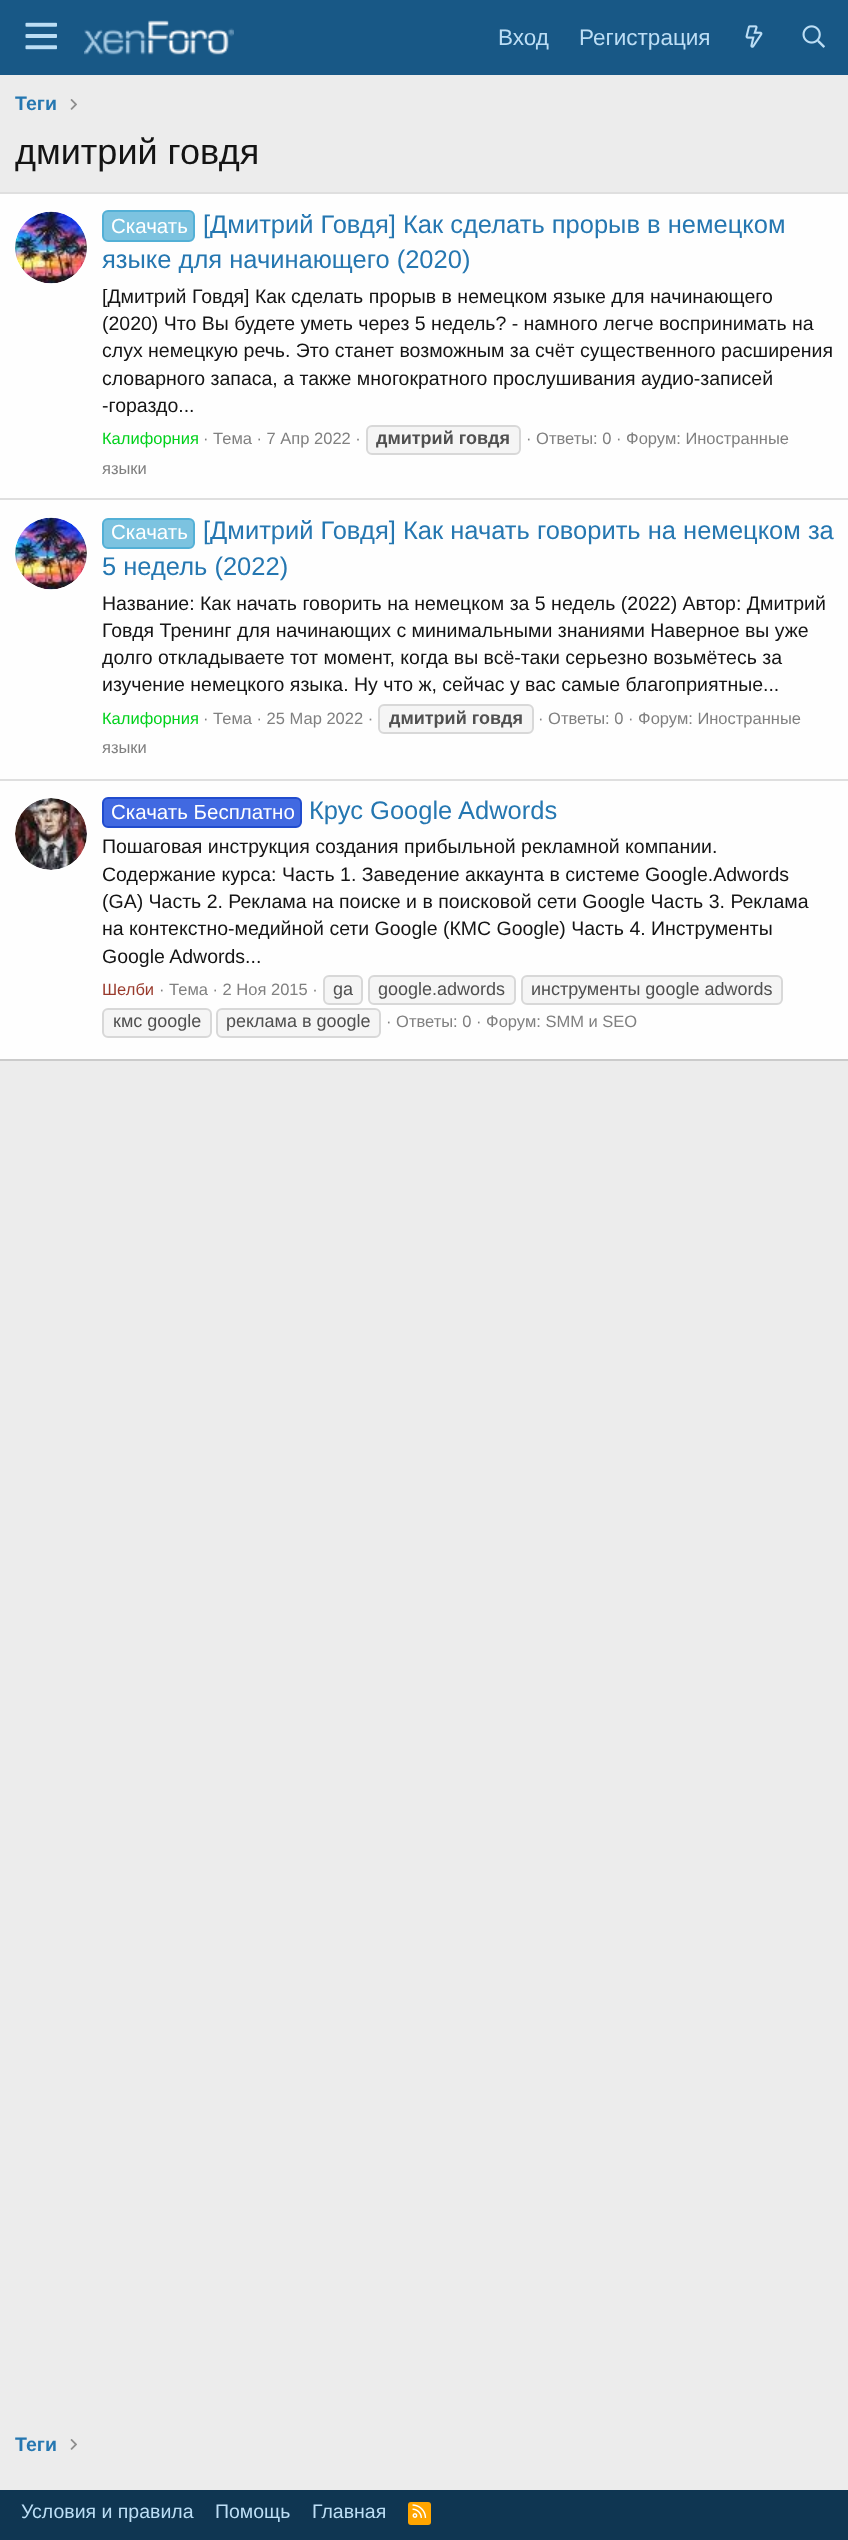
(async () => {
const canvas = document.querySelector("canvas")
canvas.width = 848
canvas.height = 2540
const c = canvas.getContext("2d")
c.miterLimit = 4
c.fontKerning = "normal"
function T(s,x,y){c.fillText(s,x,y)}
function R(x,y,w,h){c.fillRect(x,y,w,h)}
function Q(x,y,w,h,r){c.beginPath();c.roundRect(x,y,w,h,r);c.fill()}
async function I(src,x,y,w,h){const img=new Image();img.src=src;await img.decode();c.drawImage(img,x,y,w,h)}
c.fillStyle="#ececec"
R(0,0,848,2540)
c.fillStyle="#185886"
R(0,0,848,75)
await I("1.png",25,22,32,28)
await I("2.png",84,20,150,35)
c.font="22.5px Liberation Sans"
c.fillStyle="#bcdef5"
T("Вход",498,45)
T("Регистрация",579,45)
await I("3.png",745,25,18,23)
await I("4.png",802,25,23,23)
c.font="bold 19.5px Liberation Sans"
c.fillStyle="#2577b1"
T("Теги",15,110)
await I("5.png",70,99,7,11)
c.font="36px Liberation Sans"
c.fillStyle="#141414"
T("дмитрий говдя",15,164)
c.fillStyle="#fefefe"
R(0,194,848,865)
c.fillStyle="#dfdfdf"
R(0,192,848,2)
c.fillStyle="#cbcbcb"
R(0,1059,848,2)
await I("6.png",15,211,72,73)
c.fillStyle="#7cc3e0"
c.beginPath()
c.roundRect(103,211,91,30,5)
c.fill()
c.strokeStyle="#53b0d6"
c.lineWidth=2
c.stroke()
c.font="20.5px Liberation Sans"
c.fillStyle="#fff"
T("Скачать",111,233)
c.font="25.5px Liberation Sans"
c.fillStyle="#2577b1"
T("[Дмитрий Говдя] Как сделать прорыв в немецком",203,233)
T("языке для начинающего (2020)",102,268)
c.font="19.5px Liberation Sans"
c.fillStyle="#141414"
T("[Дмитрий Говдя] Как сделать прорыв в немецком языке для начинающего",102,303)
T("(2020) Что Вы будете уметь через 5 недель? - намного легче воспринимать на",102,330)
T("слух немецкую речь. Это станет возможным за счёт существенного расширения",102,357)
T("словарного запаса, а также многократного прослушивания аудио-записей",102,385)
T("-гораздо...",102,412)
c.font="16.5px Liberation Sans"
c.fillStyle="#00d11c"
T("Калифорния",102,444)
c.fillStyle="#808080"
T("· Тема · 7 Апр 2022 ·",203,444)
c.fillStyle="#f5f5f5"
c.beginPath()
c.roundRect(367,426,153,28,5)
c.fill()
c.strokeStyle="#d8d8d8"
c.stroke()
c.font="bold 18px Liberation Sans"
c.fillStyle="#505050"
T("дмитрий говдя",376,444)
c.font="16.5px Liberation Sans"
c.fillStyle="#808080"
T("· Ответы: 0 · Форум: Иностранные",526,444)
T("языки",102,474)
c.fillStyle="#dfdfdf"
R(0,498,848,2)
await I("7.png",15,517,72,73)
c.fillStyle="#7cc3e0"
c.beginPath()
c.roundRect(103,519,91,29,5)
c.fill()
c.strokeStyle="#53b0d6"
c.stroke()
c.font="20.5px Liberation Sans"
c.fillStyle="#fff"
T("Скачать",111,539)
c.font="25.5px Liberation Sans"
c.fillStyle="#2577b1"
T("[Дмитрий Говдя] Как начать говорить на немецком за",203,539)
T("5 недель (2022)",102,575)
c.font="19.5px Liberation Sans"
c.fillStyle="#141414"
T("Название: Как начать говорить на немецком за 5 недель (2022) Автор: Дмитрий",102,610)
T("Говдя Тренинг для начинающих с минимальными знаниями Наверное вы уже",102,637)
T("долго откладываете тот момент, когда вы всё-таки серьезно возьмётесь за",102,664)
T("изучение немецкого языка. Ну что ж, сейчас у вас самые благоприятные...",102,691)
c.font="16.5px Liberation Sans"
c.fillStyle="#00d11c"
T("Калифорния",102,724)
c.fillStyle="#808080"
T("· Тема · 25 Мар 2022 ·",203,724)
c.fillStyle="#f5f5f5"
c.beginPath()
c.roundRect(379,705,154,28,5)
c.fill()
c.strokeStyle="#d8d8d8"
c.stroke()
c.font="bold 18px Liberation Sans"
c.fillStyle="#505050"
T("дмитрий говдя",389,724)
c.font="16.5px Liberation Sans"
c.fillStyle="#808080"
T("· Ответы: 0 · Форум: Иностранные",538,724)
T("языки",102,753)
c.fillStyle="#dfdfdf"
R(0,779,848,2)
await I("8.png",15,798,72,72)
c.fillStyle="#4169e1"
c.beginPath()
c.roundRect(103,798,198,29,5)
c.fill()
c.strokeStyle="#214cce"
c.stroke()
c.font="20.5px Liberation Sans"
c.fillStyle="#fff"
T("Скачать Бесплатно",111,819)
c.font="25.5px Liberation Sans"
c.fillStyle="#2577b1"
T("Крус Google Adwords",309,819)
c.font="19.5px Liberation Sans"
c.fillStyle="#141414"
T("Пошаговая инструкция создания прибыльной рекламной компании.",102,853)
T("Содержание курса: Часть 1. Заведение аккаунта в системе Google.Adwords",102,881)
T("(GA) Часть 2. Реклама на поиске и в поисковой сети Google Часть 3. Реклама",102,908)
T("на контекстно-медийной сети Google (КМС Google) Часть 4. Инструменты",102,935)
T("Google Adwords...",102,963)
c.fillStyle="#f5f5f5"
c.beginPath()
c.roundRect(324,976,38,28,5)
c.fill()
c.strokeStyle="#d8d8d8"
c.stroke()
c.font="18px Liberation Sans"
c.fillStyle="#505050"
T("ga",333,995)
c.fillStyle="#f5f5f5"
c.beginPath()
c.roundRect(369,976,146,28,5)
c.fill()
c.stroke()
c.fillStyle="#505050"
T("google.adwords",378,995)
c.fillStyle="#f5f5f5"
c.beginPath()
c.roundRect(522,976,260,28,5)
c.fill()
c.stroke()
c.fillStyle="#505050"
T("инструменты google adwords",531,995)
c.fillStyle="#f5f5f5"
c.beginPath()
c.roundRect(103,1009,108,28,5)
c.fill()
c.stroke()
c.fillStyle="#505050"
T("кмс google",113,1027)
c.fillStyle="#f5f5f5"
c.beginPath()
c.roundRect(217,1009,163,28,5)
c.fill()
c.stroke()
c.fillStyle="#505050"
T("реклама в google",226,1027)
c.font="16.5px Liberation Sans"
c.fillStyle="#993a2c"
T("Шелби",102,995)
c.fillStyle="#808080"
T("· Тема · 2 Ноя 2015 ·",159,995)
T("· Ответы: 0 · Форум: SMM и SEO",386,1027)
c.font="bold 19.5px Liberation Sans"
c.fillStyle="#2577b1"
T("Теги",15,2451)
await I("5.png",70,2439,7,11)
c.fillStyle="#0f3652"
R(0,2490,848,50)
c.font="19.5px Liberation Sans"
c.fillStyle="#bcdef5"
T("Условия и правила",21,2518)
T("Помощь",215,2518)
T("Главная",312,2518)
c.fillStyle="#ffa500"
Q(408,2502,23,23,3)
await I("9.png",412,2504,15,14)
})()
